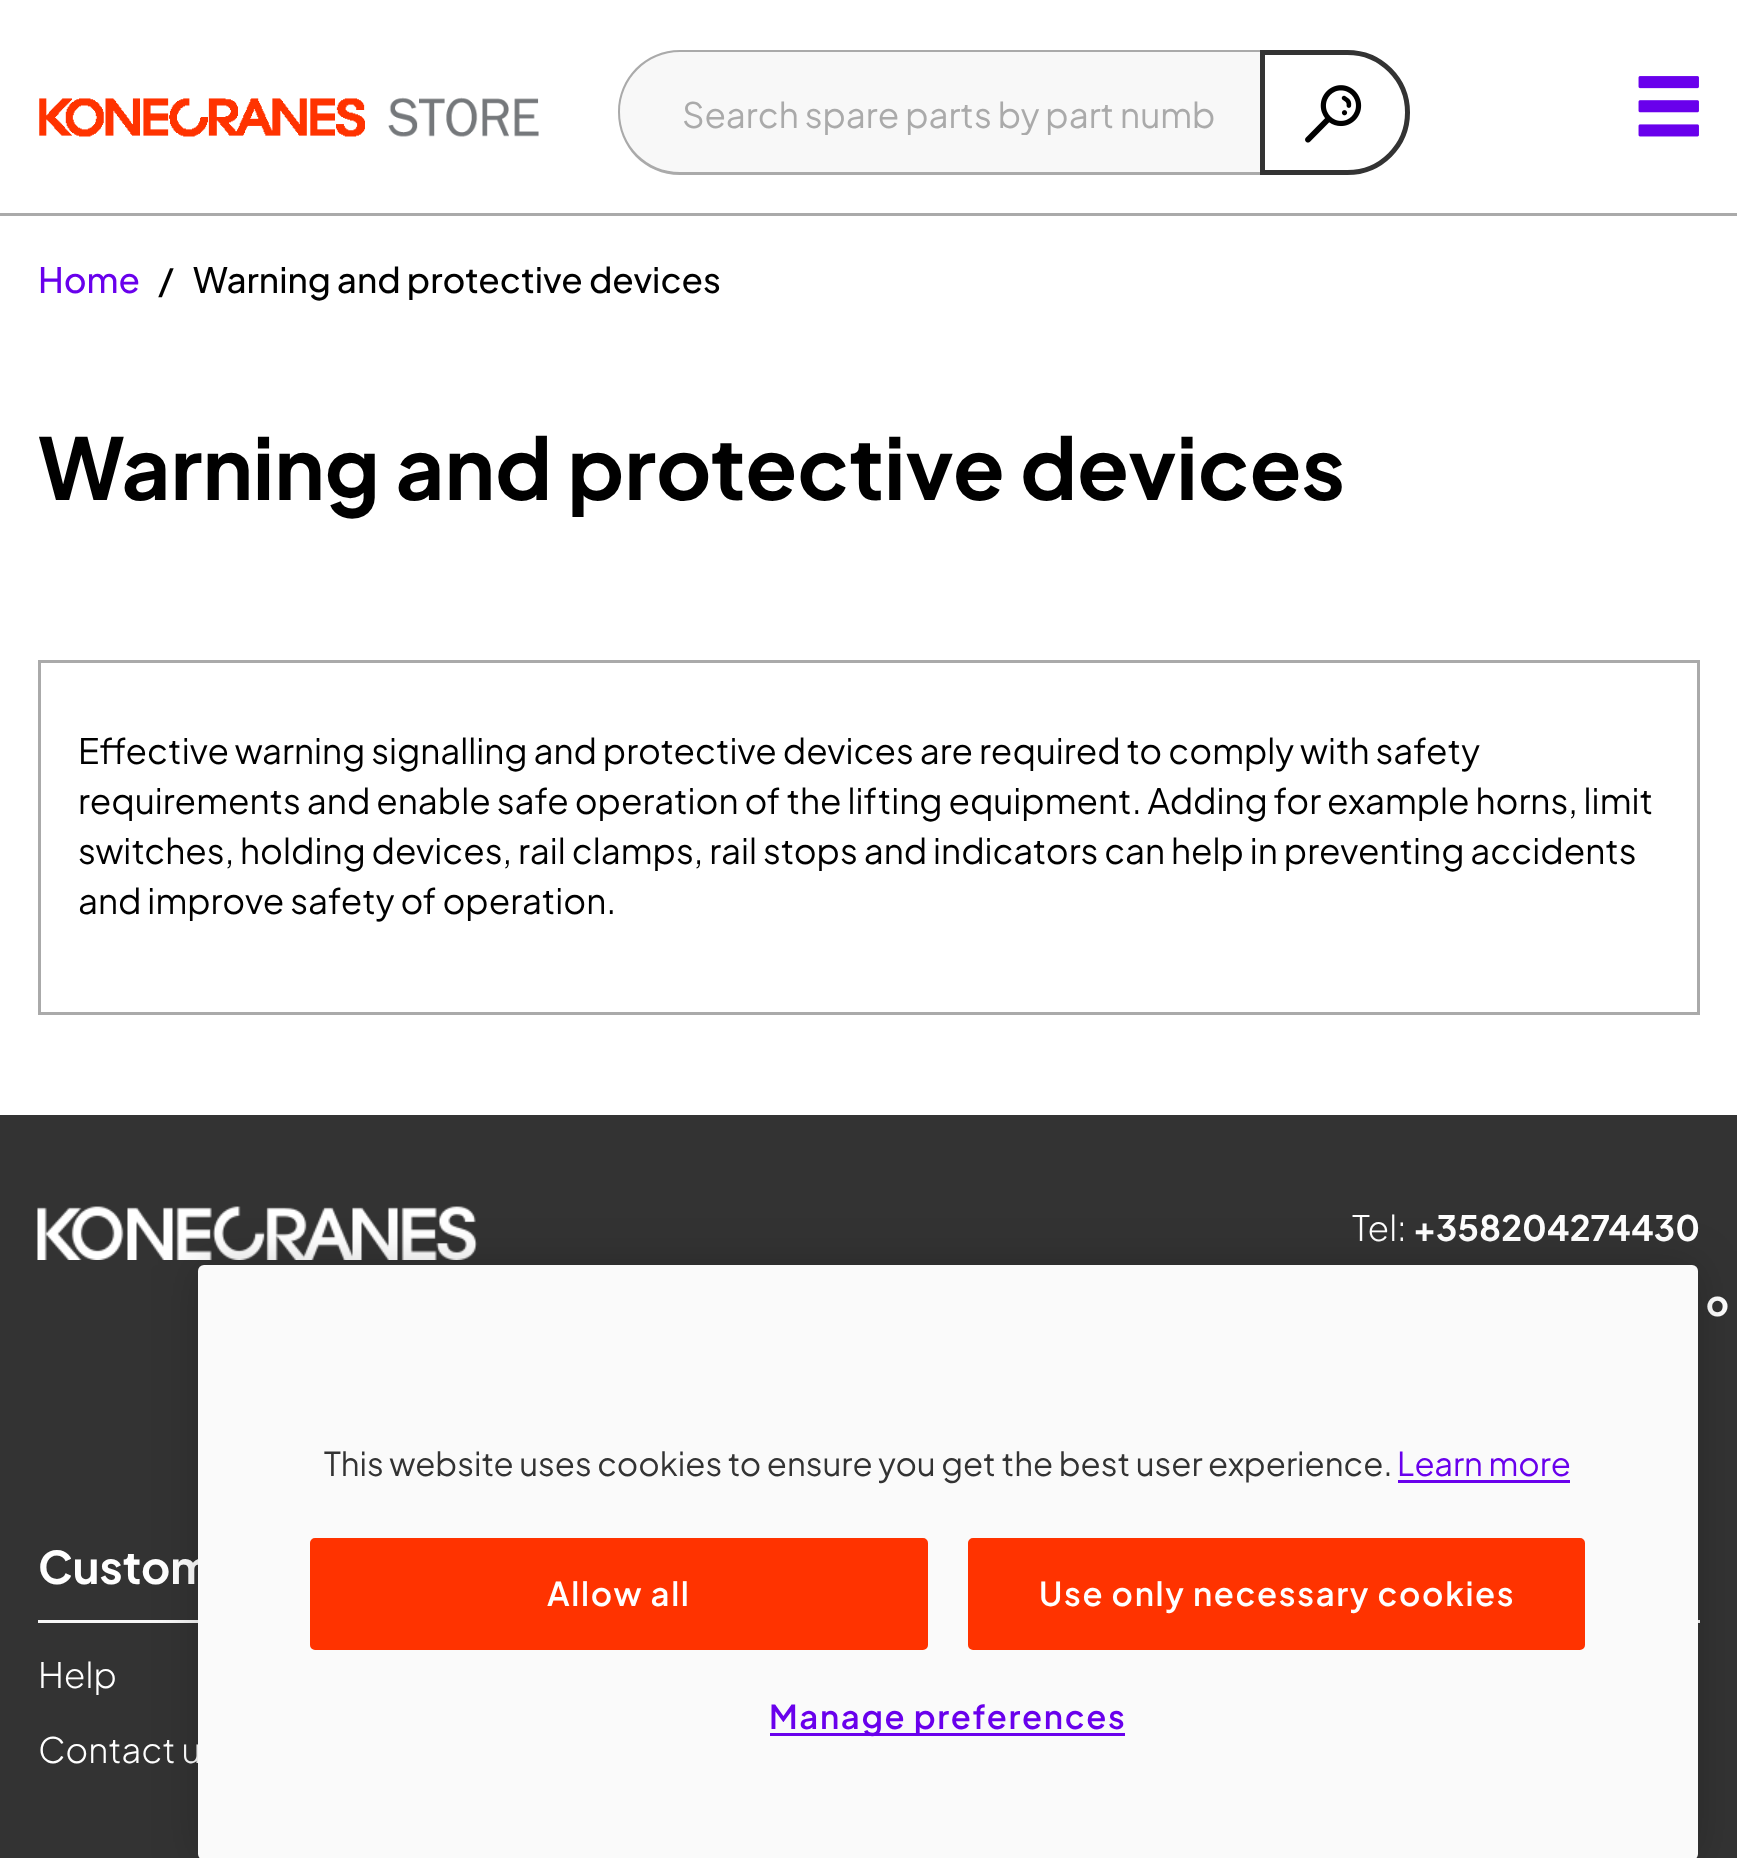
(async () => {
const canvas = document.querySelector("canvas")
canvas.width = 1737
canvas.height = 1858
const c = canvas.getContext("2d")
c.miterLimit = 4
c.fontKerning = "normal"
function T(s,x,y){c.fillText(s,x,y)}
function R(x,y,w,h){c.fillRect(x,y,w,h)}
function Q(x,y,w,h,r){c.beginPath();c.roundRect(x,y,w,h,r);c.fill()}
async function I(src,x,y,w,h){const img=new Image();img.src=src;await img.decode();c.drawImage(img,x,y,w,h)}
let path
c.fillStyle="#fff"
R(0,0,1737,1858)
await I("1.png",39,97,500,40)
c.fillStyle="#f8f8f8"
c.beginPath()
c.roundRect(618,50,645,125,[62.5,0,0,62.5])
c.fill()
c.fillStyle="#aaa"
path = new Path2D("M680 50h582v125h-582c-35 0-62-28-62-63c0-34 27-62 62-62zm0 2h582v120h-582c-33 0-60-26-60-60c0-33 27-60 60-60z")
c.fill(path,"evenodd")
c.save()
c.beginPath()
c.rect(683,90,542,45)
c.clip()
c.font="35px Plus Jakarta Sans"
T("Search spare parts by part numb",682,128)
c.restore()
c.fillStyle="#fff"
c.beginPath()
c.roundRect(1262.5,52.5,145,120,[0,60,60,0])
c.fill()
c.strokeStyle="#333"
c.lineWidth=5
c.stroke()
await I("2.png",1305,85,57,58)
await I("3.png",1638,76,61,61)
c.fillStyle="#aaa"
R(0,213,1737,3)
c.font="500 35px Plus Jakarta Sans"
c.fillStyle="#6900ec"
T("Home",38,293)
c.fillStyle="#000"
T("/",158,293)
T("Warning and protective devices",193,293)
c.font="bold 85px Plus Jakarta Sans"
T("Warning and protective devices",38,500)
c.strokeStyle="#aaa"
c.lineWidth=3
c.strokeRect(39.5,661.5,1659,352)
c.font="35px Plus Jakarta Sans"
T("Effective warning signalling and protective devices are required to comply with safety",78,764)
T("requirements and enable safe operation of the lifting equipment. Adding for example horns, limit",78,814)
T("switches, holding devices, rail clamps, rail stops and indicators can help in preventing accidents",78,864)
T("and improve safety of operation.",78,914)
c.fillStyle="#333"
R(0,1115,1737,743)
await I("4.png",37,1206,441,54)
c.font="300 35px Plus Jakarta Sans"
c.fillStyle="#fff"
T("Tel:",1352,1241)
c.font="bold 35px Plus Jakarta Sans"
T("+358204274430",1413,1241)
T("o",1706,1316)
c.fillStyle="#f8f8f8"
R(38,1620,160,3)
c.font="bold 45px Plus Jakarta Sans"
c.fillStyle="#fff"
T("Custom",38,1584)
c.font="300 35px Plus Jakarta Sans"
T("Help",38,1688)
T("Contact u",38,1763)
c.fillStyle="#f8f8f8"
R(1698,1620,2,3)
c.fillStyle="#00000033"
c.filter="blur(22.5px)"
c.beginPath()
c.roundRect(198,1265,1500,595,6)
c.fill()
c.filter="none"
c.fillStyle="#fafafa"
Q(198,1265,1500,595,6)
c.font="32.8px Plus Jakarta Sans"
c.fillStyle="#333"
T("This website uses cookies to ensure you get the best user experience.",324,1476)
c.fillStyle="#6900ec"
T("Learn more",1397,1476)
R(1398,1480,172,3)
c.fillStyle="#f30"
c.beginPath()
c.roundRect(311.5,1539.5,615,109,3.5)
c.fill()
c.strokeStyle="#f30"
c.stroke()
c.letterSpacing="1.65px"
c.font="600 32.8px Plus Jakarta Sans"
c.fillStyle="#fff"
T("Allow all",547,1606)
c.fillStyle="#f30"
c.beginPath()
c.roundRect(969.5,1539.5,614,109,3.5)
c.fill()
c.stroke()
c.fillStyle="#fff"
T("Use only necessary cookies",1039,1606)
c.fillStyle="#6900ec"
R(770,1733,355,3)
T("Manage preferences",769,1729)
})()
